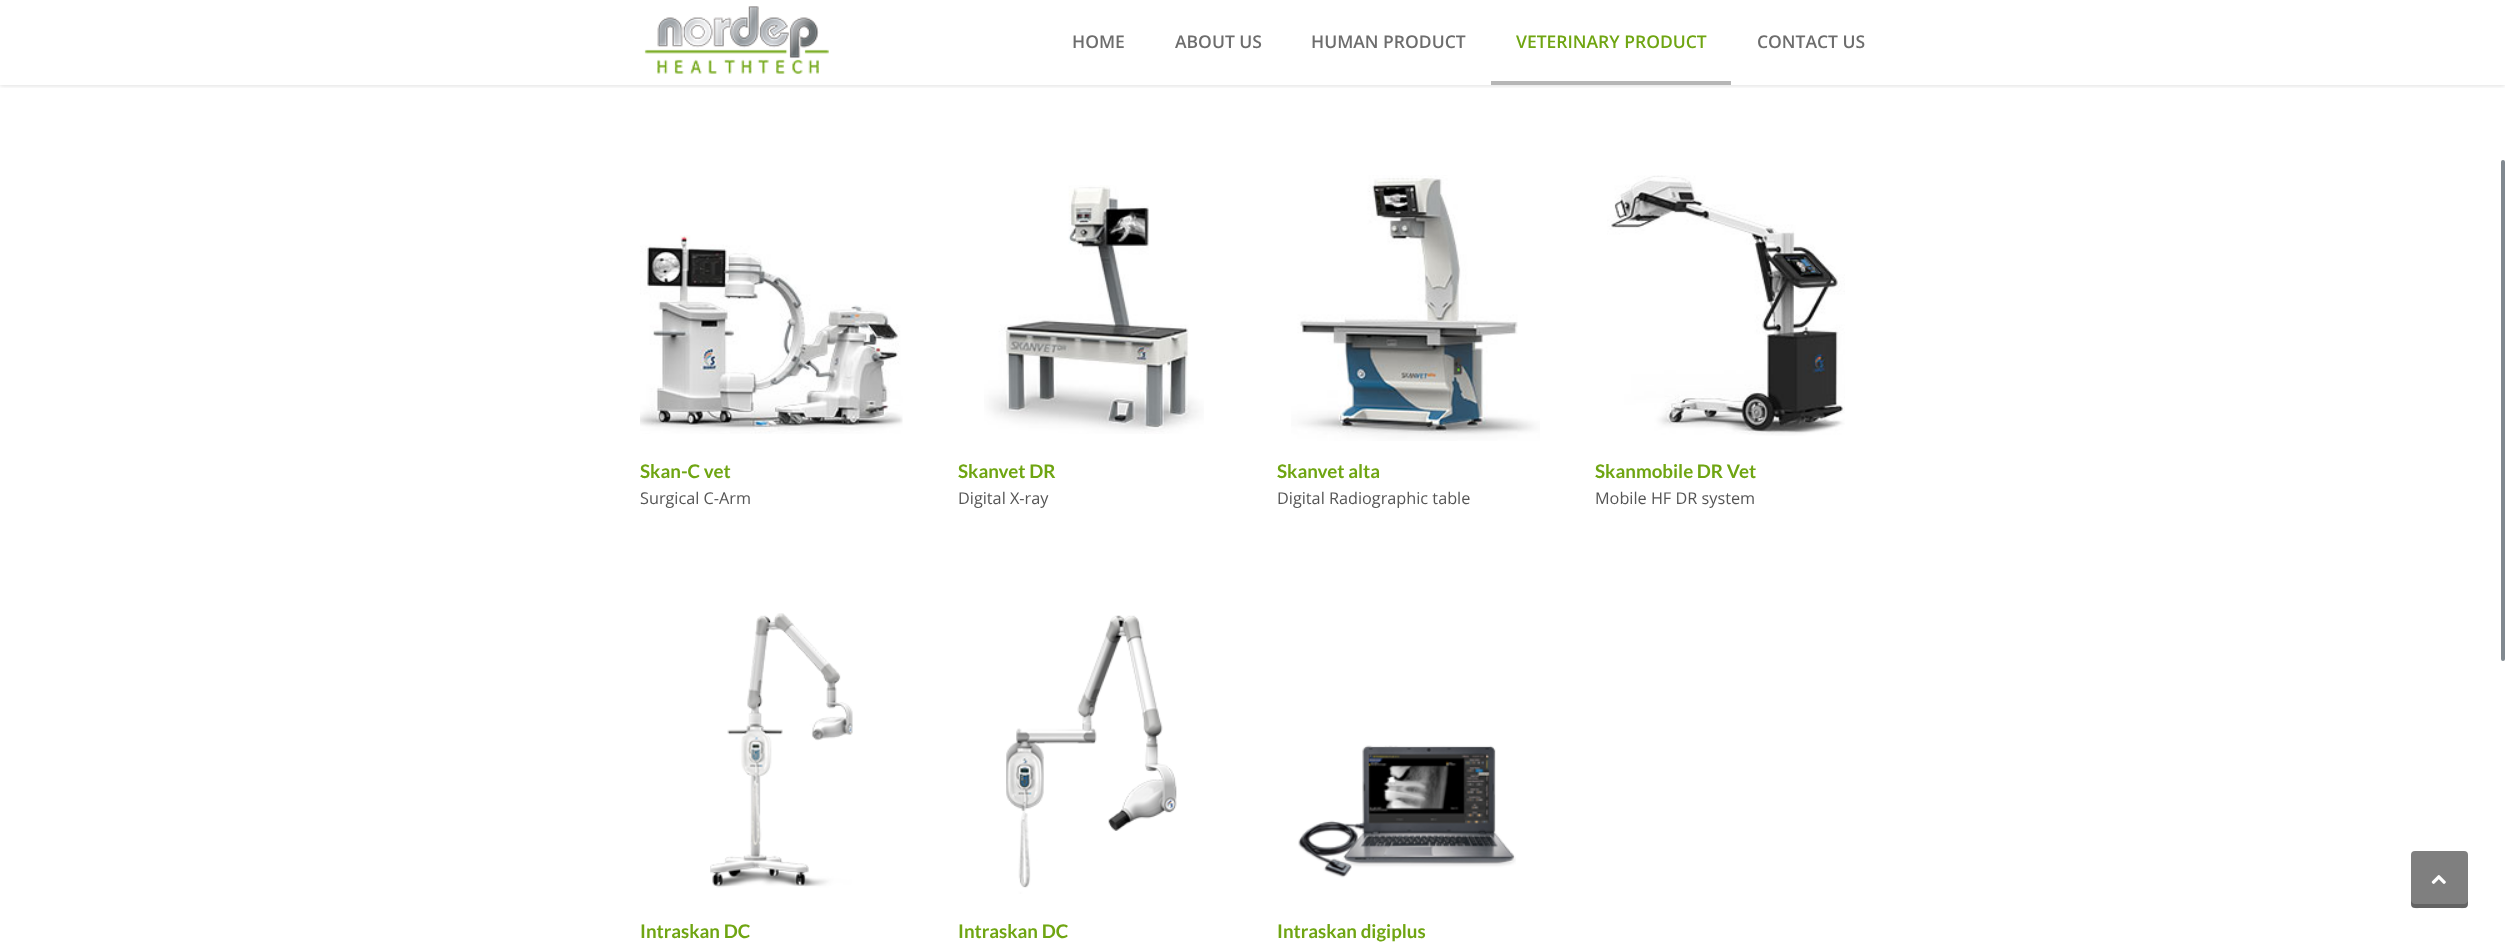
(async () => {
const canvas = document.querySelector("canvas")
canvas.width = 2505
canvas.height = 944
const c = canvas.getContext("2d")
c.miterLimit = 4
c.fontKerning = "normal"
function T(s,x,y){c.fillText(s,x,y)}
function R(x,y,w,h){c.fillRect(x,y,w,h)}
function Q(x,y,w,h,r){c.beginPath();c.roundRect(x,y,w,h,r);c.fill()}
async function I(src,x,y,w,h){const img=new Image();img.src=src;await img.decode();c.drawImage(img,x,y,w,h)}
let path
c.fillStyle="#fff"
R(0,0,2505,944)
c.save()
c.beginPath()
c.rect(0,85,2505,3)
c.clip()
c.fillStyle="#0000001f"
c.filter="blur(2px)"
c.beginPath()
c.rect(0,1,2505,85)
c.fill()
c.filter="none"
c.restore()
await I("1.png",644,6,185,68)
c.font="600 17.5px Open Sans"
c.fillStyle="#6d6d6d"
T("HOME",1072,48)
T("ABOUT US",1175,48)
T("HUMAN PRODUCT",1311,48)
c.fillStyle="#b6b6b6"
R(1491,81,240,4)
c.fillStyle="#6fa512"
T("VETERINARY PRODUCT",1516,48)
c.fillStyle="#6d6d6d"
T("CONTACT US",1757,48)
await I("2.png",640,235,263,199)
c.font="bold 18.75px Lato"
c.fillStyle="#6fa512"
T("Skan-C vet",640,478)
c.font="16.25px Open Sans"
c.fillStyle="#555"
T("Surgical C-Arm",640,504)
await I("3.png",984,185,220,249)
c.font="bold 18.75px Lato"
c.fillStyle="#6fa512"
T("Skanvet DR",958,478)
c.font="16.25px Open Sans"
c.fillStyle="#555"
T("Digital X-ray",958,504)
await I("4.png",1291,175,249,266)
c.font="bold 18.75px Lato"
c.fillStyle="#6fa512"
T("Skanvet alta",1277,478)
c.font="16.25px Open Sans"
c.fillStyle="#555"
T("Digital Radiographic table",1277,504)
await I("5.png",1607,175,238,261)
c.font="bold 18.75px Lato"
c.fillStyle="#6fa512"
T("Skanmobile DR Vet",1595,478)
c.font="16.25px Open Sans"
c.fillStyle="#555"
T("Mobile HF DR system",1595,504)
await I("6.png",710,613,143,275)
c.font="bold 18.75px Lato"
c.fillStyle="#6fa512"
T("Intraskan DC",640,938)
await I("7.png",1006,615,171,279)
T("Intraskan DC",958,938)
await I("8.png",1298,745,218,133)
T("Intraskan digiplus",1277,938)
c.fillStyle="#818990"
Q(2501,160,4,501,2)
c.fillStyle="#7f7f7f"
Q(2411,851,57,57,4)
c.fillStyle="#00000038"
path = new Path2D("M2411 900c0 10 2 8 12 8h33c10 0 12 2 12-8c0 2-2 4-4 4h-49c-2 0-4-2-4-4z")
c.fill(path)
await I("9.png",2431,875,15,9)
})()
